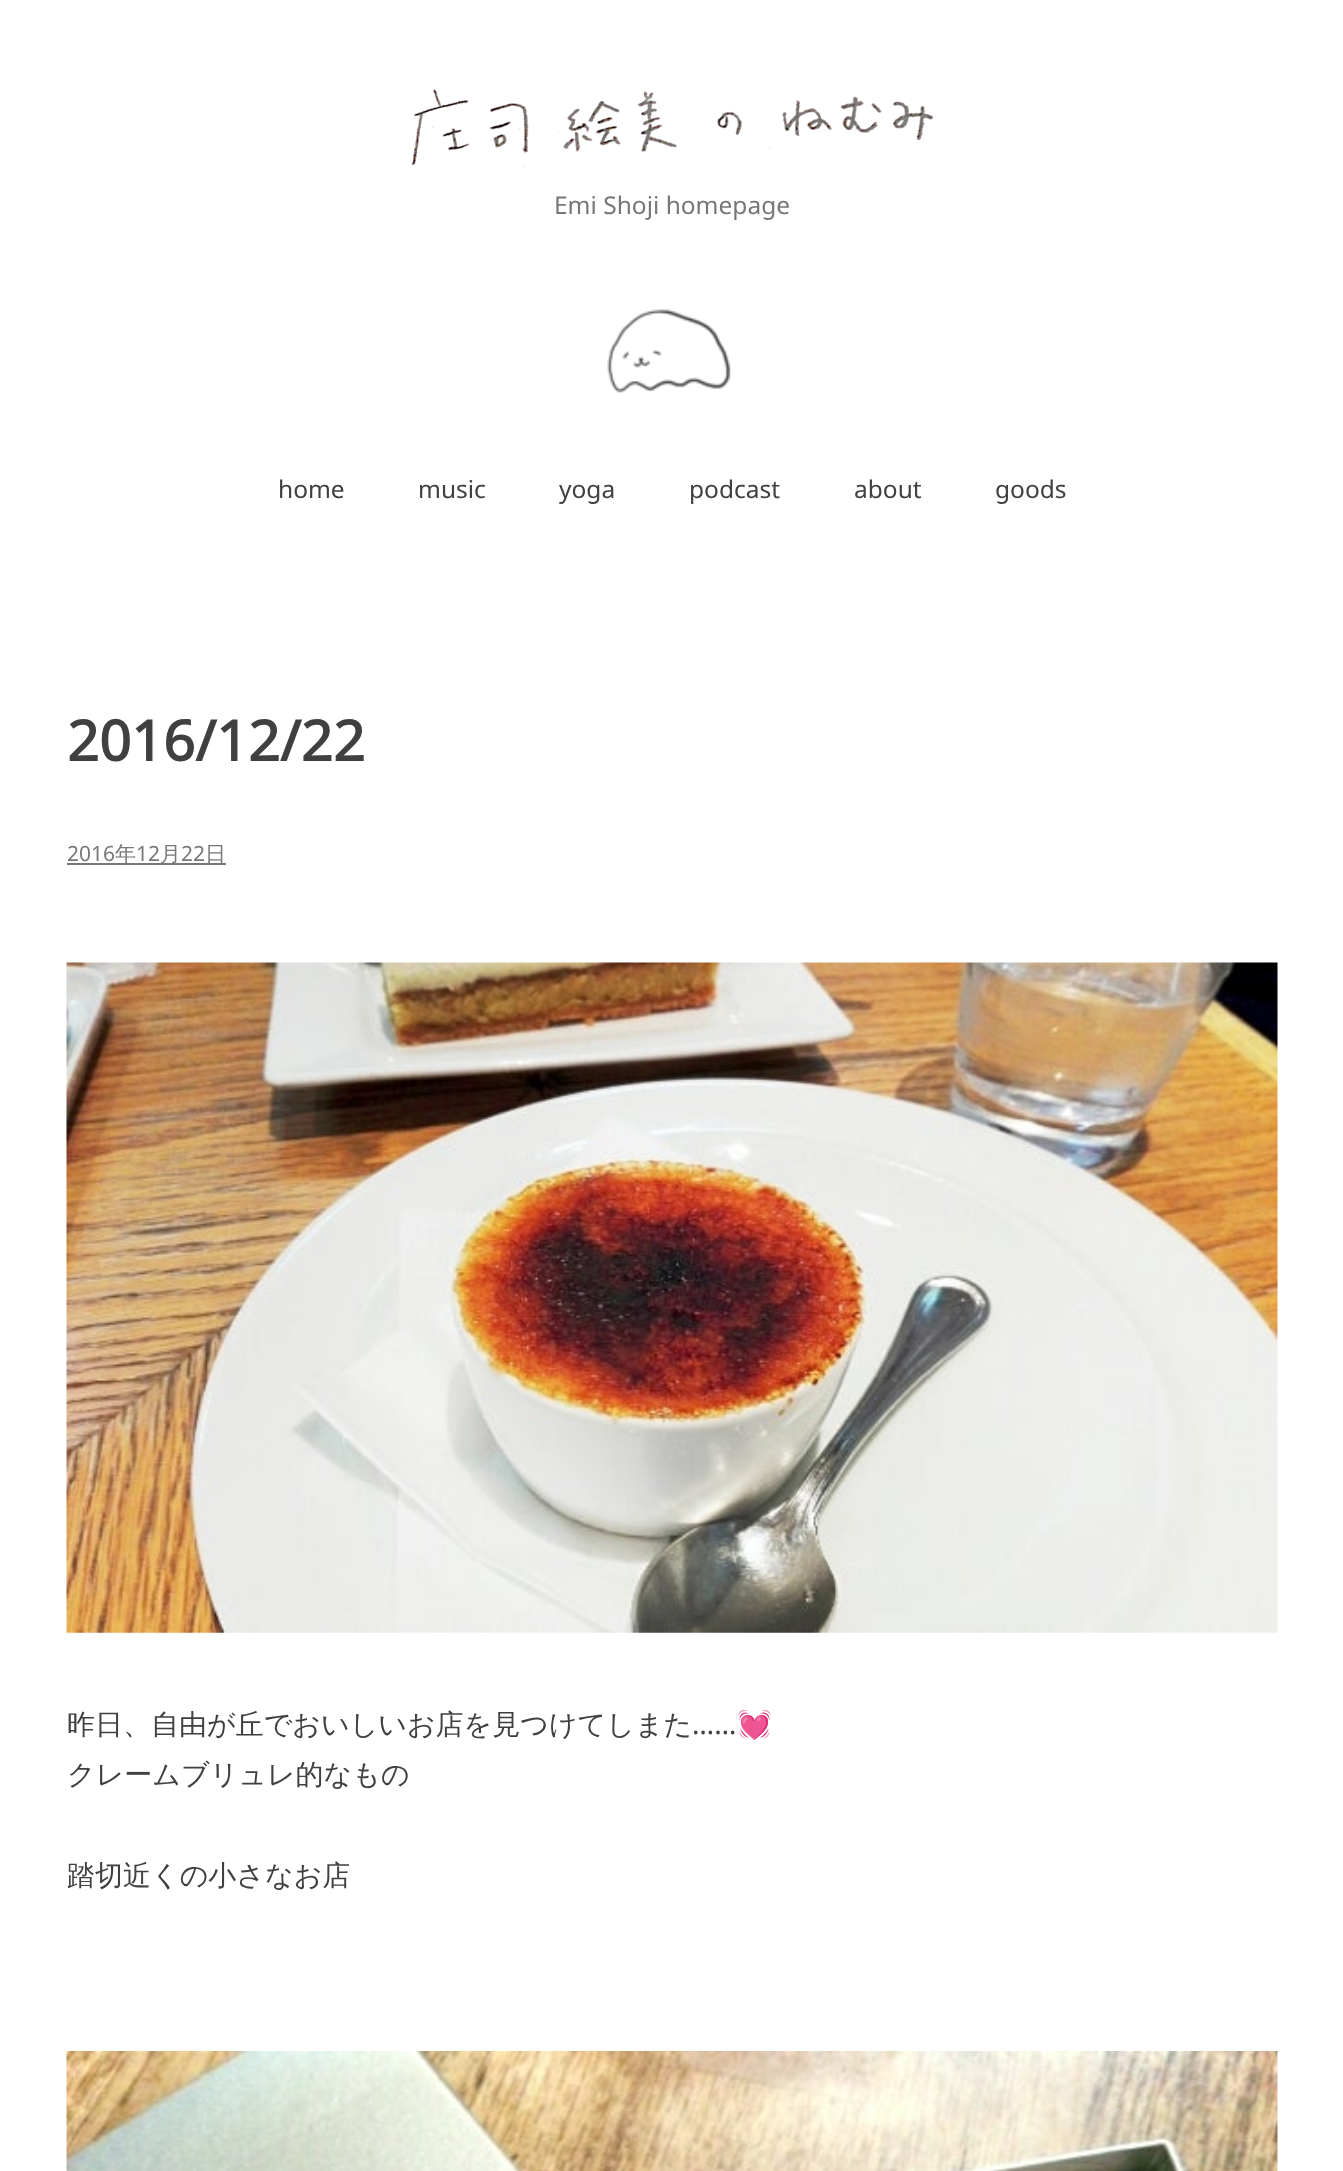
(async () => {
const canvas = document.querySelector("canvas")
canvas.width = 1343
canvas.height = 2171
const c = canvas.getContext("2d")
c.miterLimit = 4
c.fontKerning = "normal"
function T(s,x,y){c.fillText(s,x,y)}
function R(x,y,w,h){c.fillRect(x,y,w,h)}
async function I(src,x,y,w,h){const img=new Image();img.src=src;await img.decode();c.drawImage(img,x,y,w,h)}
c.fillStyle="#fff"
R(0,0,1343,2171)
await I("1.png",409,89,524,79)
c.font="24.5px Noto Sans"
c.fillStyle="#777"
T("Emi Shoji homepage",554,214)
await I("2.png",607,309,124,84)
c.fillStyle="#404040"
T("home",278,498)
T("music",418,498)
T("yoga",559,498)
T("podcast",689,498)
T("about",854,498)
T("goods",995,498)
c.font="bold 56px Noto Sans"
T("2016/12/22",67,761)
c.font="21px Noto Sans"
c.fillStyle="#777"
T("2016",67,861)
R(67,863,159,2)
c.font="500 21px WenQuanYi Zen Hei"
T("年",115,861)
c.font="21px Noto Sans"
T("12",136,861)
c.font="500 21px WenQuanYi Zen Hei"
T("月",160,861)
c.font="21px Noto Sans"
T("22",181,861)
c.font="500 21px WenQuanYi Zen Hei"
T("日",205,861)
await I("3.png",66,962,1212,671)
c.font="500 28px WenQuanYi Zen Hei"
c.fillStyle="#404040"
T("昨日、自由が丘でおいしいお店を見つけてしまた",67,1734)
c.font="28px Noto Sans"
T("……",692,1734)
c.font="28px Noto Color Emoji"
T("💓",737,1734)
c.font="500 28px WenQuanYi Zen Hei"
T("クレームブリュレ的なもの",67,1784)
T("踏切近くの小さなお店",67,1885)
await I("4.png",66,2051,1212,120)
})()
